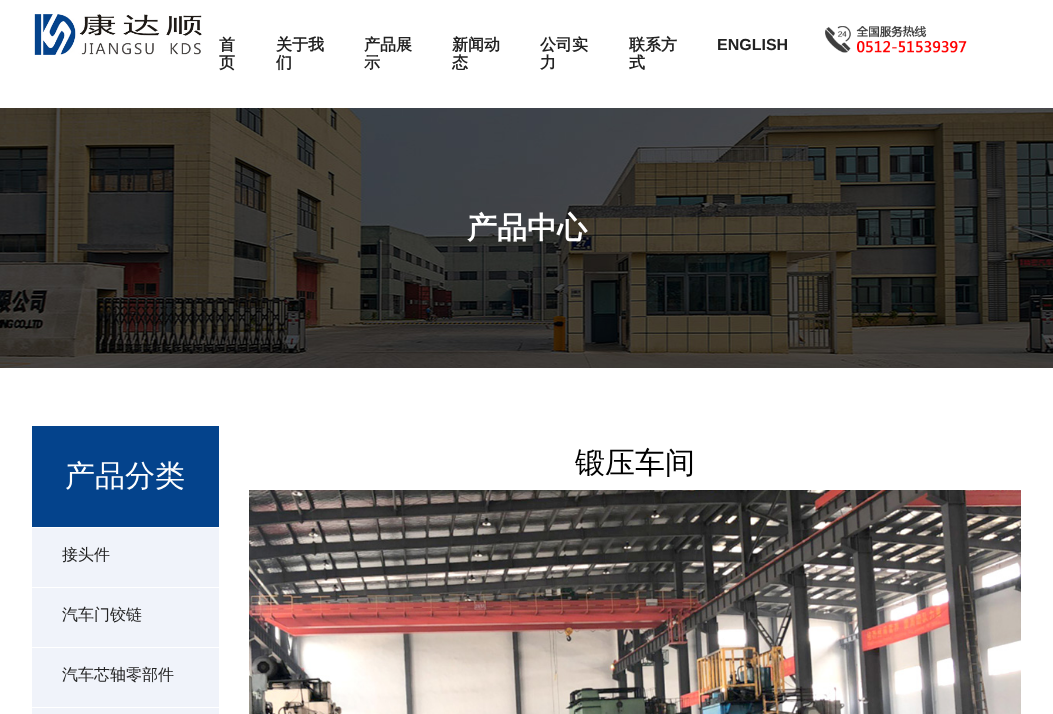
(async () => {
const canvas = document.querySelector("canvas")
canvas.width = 1053
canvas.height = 714
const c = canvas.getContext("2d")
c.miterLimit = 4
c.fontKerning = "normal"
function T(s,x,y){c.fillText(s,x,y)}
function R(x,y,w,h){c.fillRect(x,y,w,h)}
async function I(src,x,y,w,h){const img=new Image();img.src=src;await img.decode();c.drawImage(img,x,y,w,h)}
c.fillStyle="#fff"
R(0,0,1053,714)
await I("1.png",34,14,168,41)
c.font="bold 16px WenQuanYi Zen Hei"
c.fillStyle="#222"
T("首",219,50)
T("页",219,68)
T("关于我",276,50)
T("们",276,68)
T("产品展",364,50)
T("示",364,68)
T("新闻动",452,50)
T("态",452,68)
T("公司实",540,50)
T("力",540,68)
T("联系方",629,50)
T("式",629,68)
c.font="bold 16px Liberation Sans"
T("ENGLISH",717,50)
await I("2.png",825,25,142,28)
await I("3.png",0,108,1053,260)
c.font="bold 30px WenQuanYi Zen Hei"
c.fillStyle="#fff"
T("产品中心",467,238)
c.fillStyle="#04438c"
R(32,426,187,101)
c.font="500 30px WenQuanYi Zen Hei"
c.fillStyle="#fff"
T("产品分类",65,486)
c.fillStyle="#f0f3fa"
R(32,528,187,59)
c.font="500 16px WenQuanYi Zen Hei"
c.fillStyle="#222"
T("接头件",62,560)
c.fillStyle="#f0f3fa"
R(32,588,187,59)
c.fillStyle="#222"
T("汽车门铰链",62,620)
c.fillStyle="#f0f3fa"
R(32,648,187,59)
c.fillStyle="#222"
T("汽车芯轴零部件",62,680)
c.fillStyle="#f0f3fa"
R(32,708,187,6)
c.font="500 30px WenQuanYi Zen Hei"
c.fillStyle="#000"
T("锻压车间",575,473)
await I("4.png",249,490,772,224)
})()
